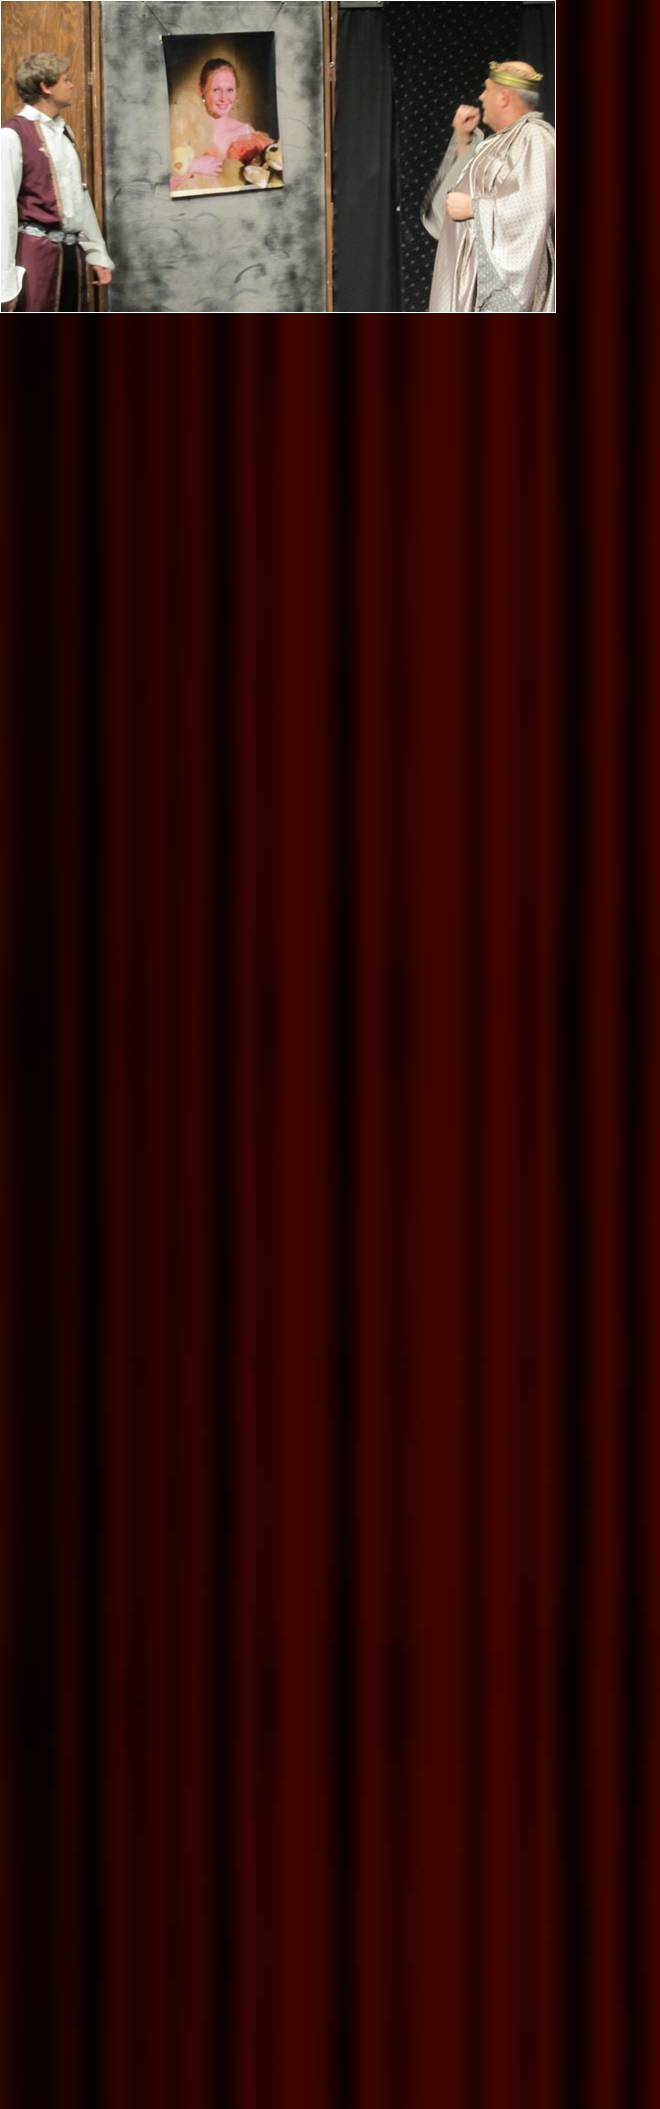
(async () => {
const canvas = document.querySelector("canvas")
canvas.width = 660
canvas.height = 2109
const c = canvas.getContext("2d")
c.miterLimit = 4
c.fontKerning = "normal"
function R(x,y,w,h){c.fillRect(x,y,w,h)}
async function I(src,x,y,w,h){const img=new Image();img.src=src;await img.decode();c.drawImage(img,x,y,w,h)}
c.fillStyle="#fff"
R(0,0,660,2109)
await I("1.png",0,0,660,2109)
await I("2.png",0,0,556,313)
})()
